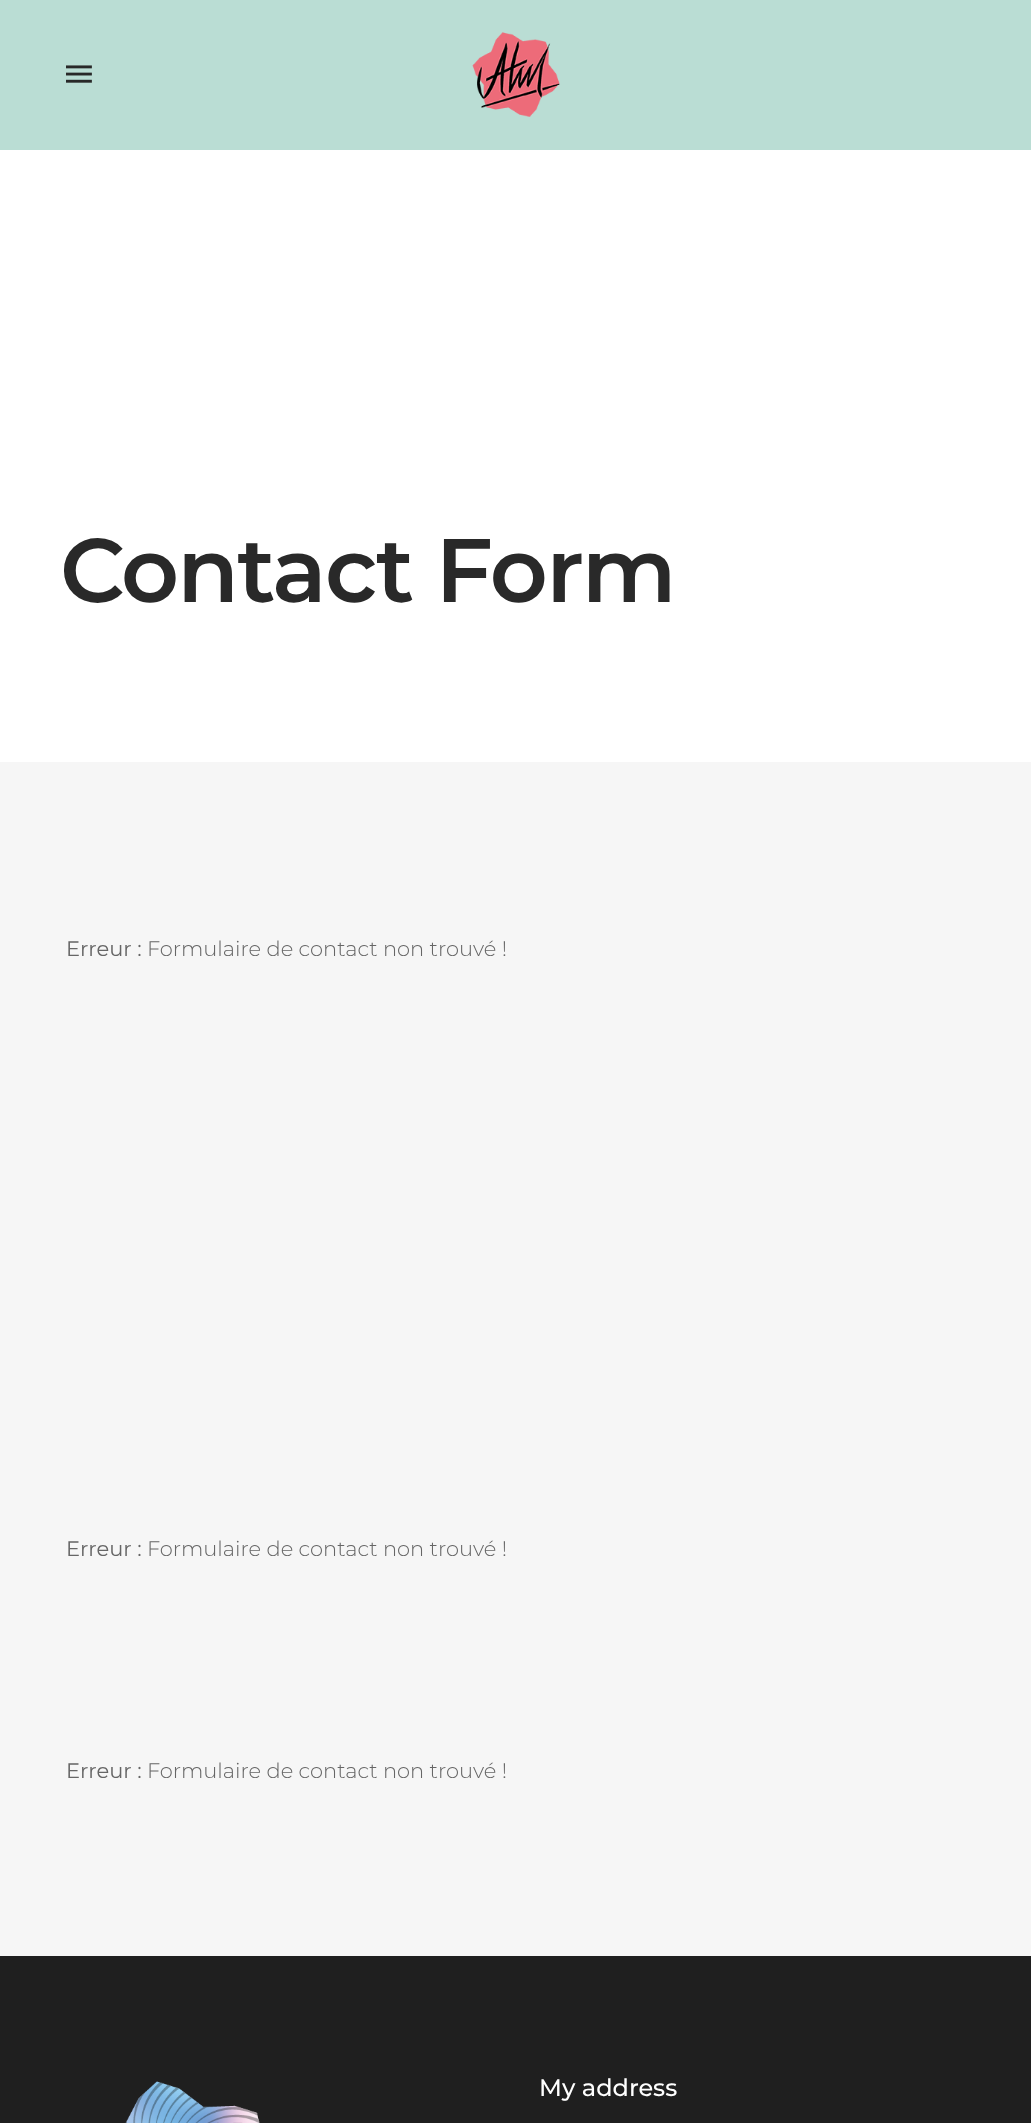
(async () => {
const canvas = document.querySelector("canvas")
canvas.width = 1031
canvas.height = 2123
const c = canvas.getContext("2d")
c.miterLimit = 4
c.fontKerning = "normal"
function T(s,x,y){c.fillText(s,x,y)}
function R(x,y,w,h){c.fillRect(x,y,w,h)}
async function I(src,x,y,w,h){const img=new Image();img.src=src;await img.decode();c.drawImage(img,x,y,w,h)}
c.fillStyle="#fff"
R(0,0,1031,2123)
c.fillStyle="#baddd4"
R(0,0,1031,150)
await I("1.png",66,65,26,18)
await I("2.png",472,32,88,85)
c.letterSpacing="-1.75px"
c.font="600 90px Montserrat"
c.fillStyle="#292929"
T("Contact Form",60,602)
c.fillStyle="#f6f6f6"
R(0,762,1031,1194)
c.letterSpacing="0px"
c.font="21px Montserrat"
c.fillStyle="#666"
T("Erreur :",66,956)
c.font="300 21px Montserrat"
T("Formulaire de contact non trouvé !",147,956)
c.font="21px Montserrat"
T("Erreur :",66,1556)
c.font="300 21px Montserrat"
T("Formulaire de contact non trouvé !",147,1556)
c.font="21px Montserrat"
T("Erreur :",66,1778)
c.font="300 21px Montserrat"
T("Formulaire de contact non trouvé !",147,1778)
c.fillStyle="#1f1f1f"
R(0,1956,1031,167)
await I("3.png",125,2081,135,42)
c.font="500 24px Montserrat"
c.fillStyle="#fff"
T("My address",539,2096)
})()
